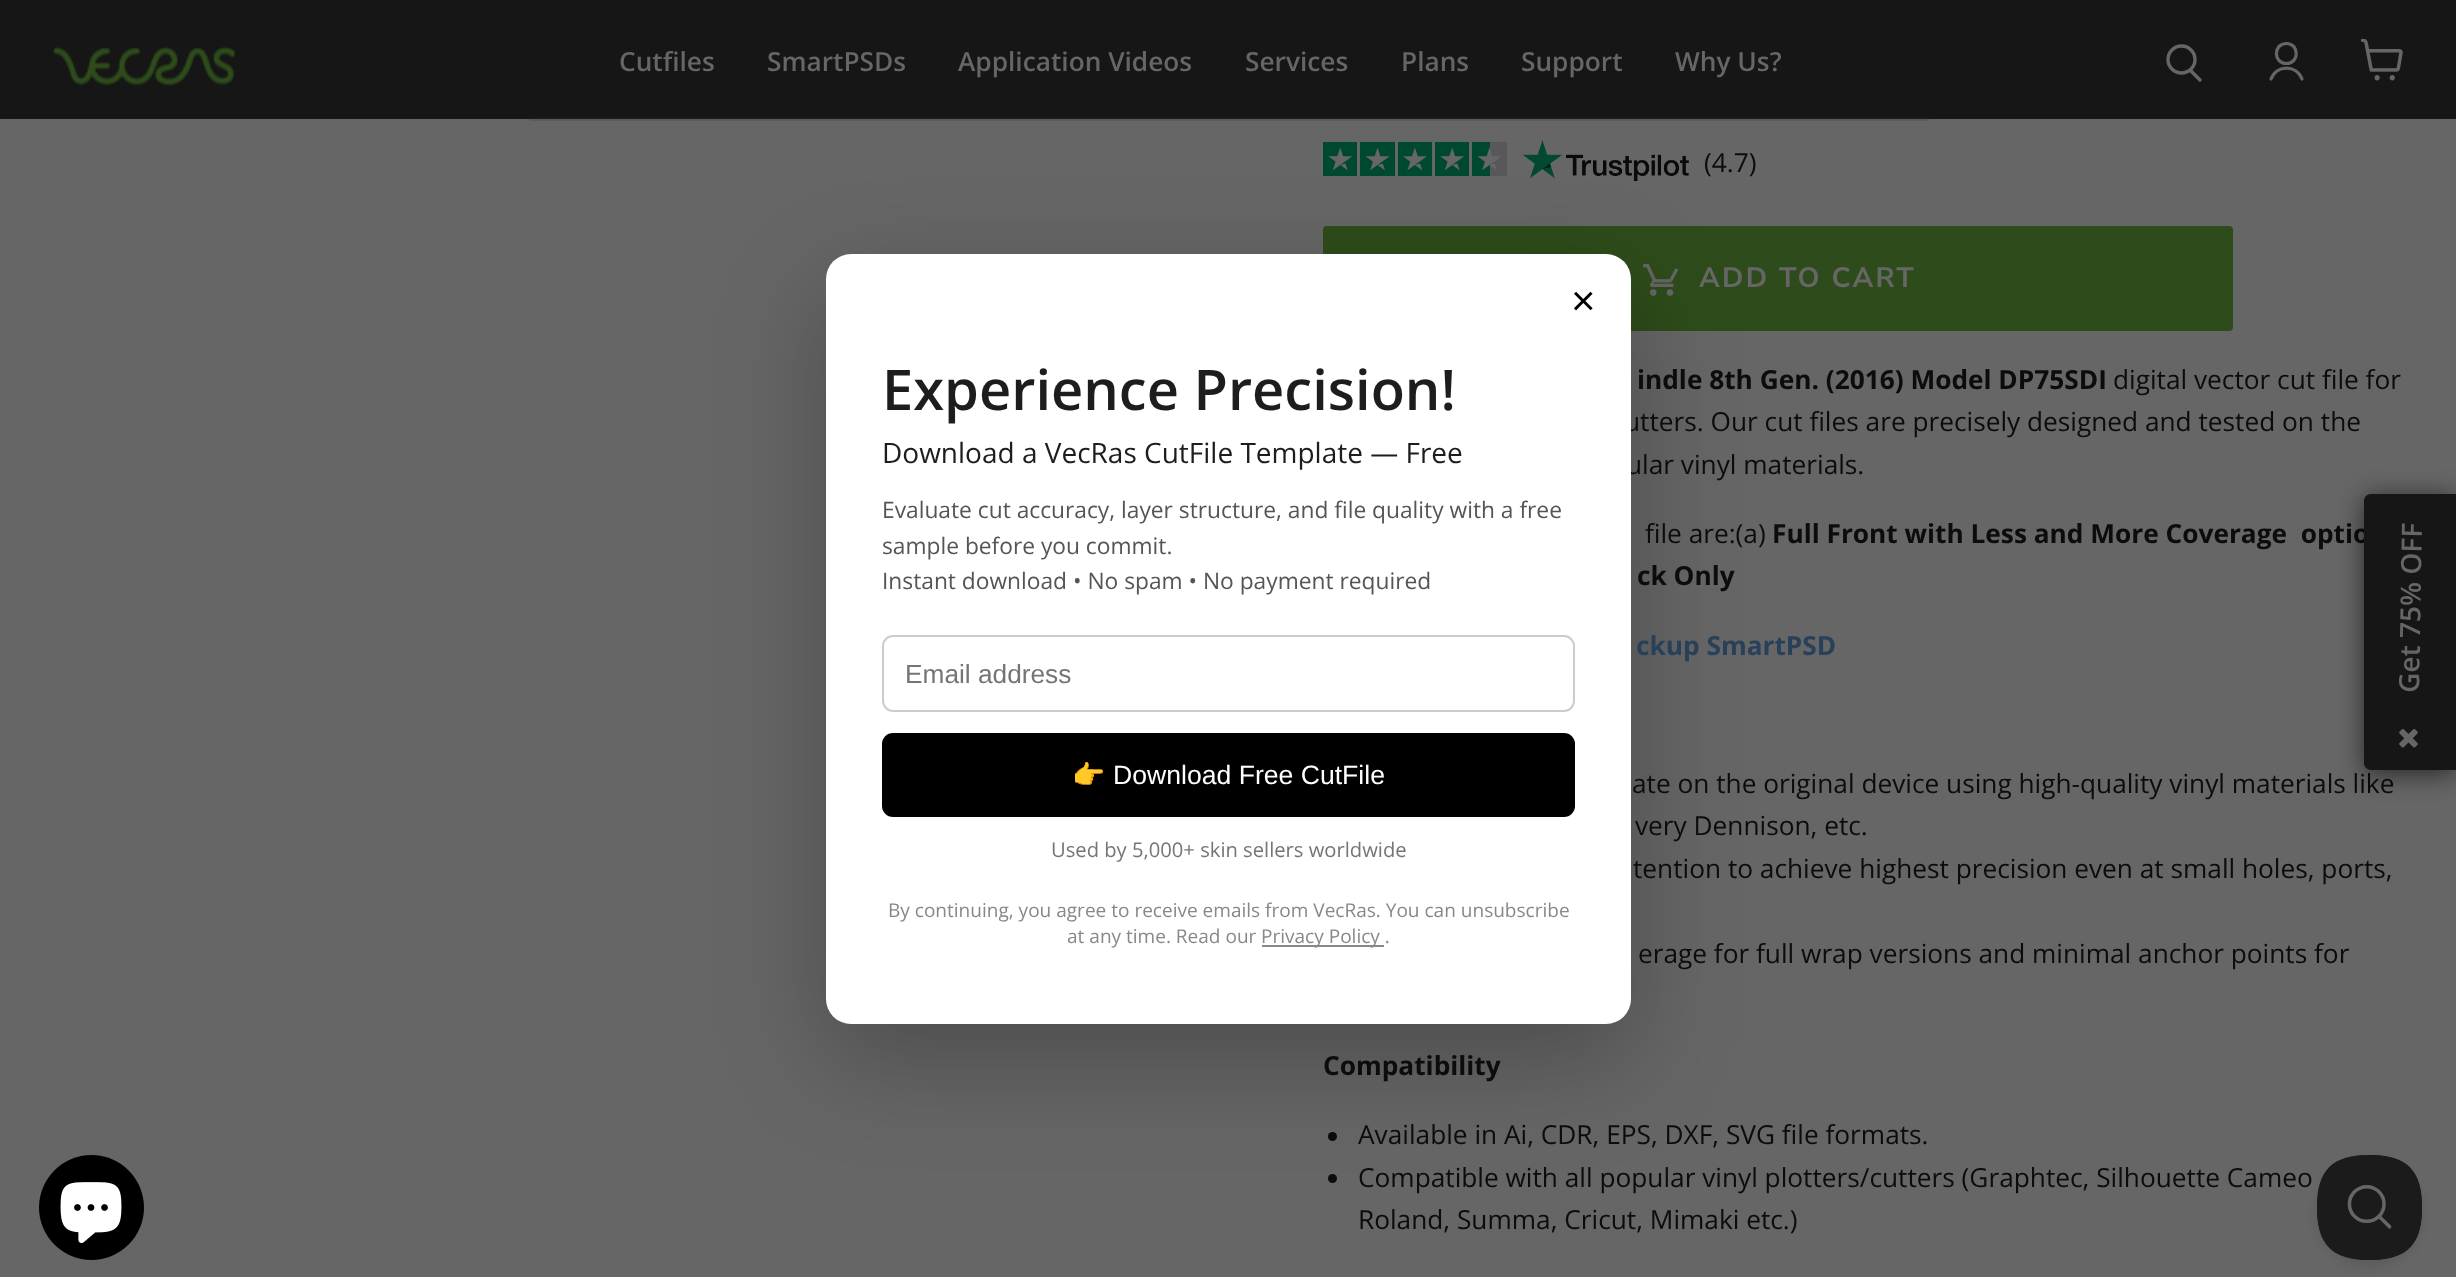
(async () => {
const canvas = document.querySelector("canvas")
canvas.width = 2456
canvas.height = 1277
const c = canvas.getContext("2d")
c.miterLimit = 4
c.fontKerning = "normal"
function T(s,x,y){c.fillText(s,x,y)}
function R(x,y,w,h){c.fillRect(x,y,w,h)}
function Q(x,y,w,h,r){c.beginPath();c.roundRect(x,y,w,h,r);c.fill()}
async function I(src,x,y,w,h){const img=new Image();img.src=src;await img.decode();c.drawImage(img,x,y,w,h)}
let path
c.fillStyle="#666"
R(0,0,2456,1277)
c.fillStyle="#161616"
R(0,0,2456,119)
await I("1.png",52,46,184,40)
c.font="600 26.25px Open Sans"
c.fillStyle="#666"
T("Cutfiles",619,71)
T("SmartPSDs",767,71)
T("Application Videos",958,71)
T("Services",1245,71)
T("Plans",1401,71)
T("Support",1521,71)
T("Why Us?",1675,71)
c.fillStyle="#33333333"
Q(529,117,1400,4,2)
path = new Path2D("M2200 80l-9.5-9.5")
c.strokeStyle="#666"
c.lineWidth=3.4
c.lineCap="round"
c.stroke(path)
c.beginPath()
c.arc(2181.5,59.5,13.5,0,7)
c.stroke()
path = new Path2D("M2286.5 63.5c13 0 13-20 0-20c-13.5 0-13.5 20 0 20zm15.5 15.5c-5.5-14.5-25.5-14.5-31 0")
c.lineWidth=3.2
c.lineJoin="round"
c.stroke(path)
await I("2.png",2361,39,42,42)
await I("3.png",1323,142,184,34)
await I("4.png",1522,140,167,41)
c.fillStyle="#2e4c1b"
Q(1323,226,910,105,4)
await I("5.png",1643,264,36,32)
c.fillStyle="#0c0c0c"
c.beginPath()
c.arc(1332.5,1136.5,4.5,0,7)
c.fill()
c.beginPath()
c.arc(1332.5,1178.5,4.5,0,7)
c.fill()
c.fillStyle="#00000040"
c.filter="blur(52.5px)"
c.beginPath()
c.roundRect(826,289,805,770,25)
c.fill()
c.filter="none"
c.font="26.25px Open Sans"
c.fillStyle="#0c0c0c"
T("utters. Our cut files are precisely designed and tested on the",1624,431)
T("ular vinyl materials.",1626,474)
c.fillStyle="#fff"
Q(826,254,805,770,25)
c.font="42px Liberation Sans"
c.fillStyle="#000"
T("×",1571,315)
c.font="600 56px Open Sans"
c.fillStyle="#1d1d1d"
T("Experience Precision!",882,410)
c.font="28px Open Sans"
T("Download a VecRas CutFile Template — Free",882,463)
c.font="22.75px Open Sans"
c.fillStyle="#555"
T("Evaluate cut accuracy, layer structure, and file quality with a free",882,518)
T("sample before you commit.",882,554)
T("Instant download • No spam • No payment required",882,589)
c.beginPath()
c.roundRect(883,636,691,75,10)
c.strokeStyle="#ccc"
c.lineWidth=2
c.lineJoin="miter"
c.stroke()
c.font="26.25px Liberation Sans"
c.fillStyle="#757575"
T("Email address",905,683)
c.fillStyle="#000"
Q(882,733,693,84,11)
c.font="26.6px Noto Color Emoji"
c.fillStyle="#fff"
T("👉",1072,784)
c.font="26.6px Liberation Sans"
T("Download Free CutFile",1113,784)
c.font="20.2px Open Sans"
c.fillStyle="#757575"
T("Used by 5,000+ skin sellers worldwide",1051,857)
c.font="19.05px Open Sans"
c.fillStyle="#888"
T("By continuing, you agree to receive emails from VecRas. You can unsubscribe",888,917)
T("at any time. Read our",1067,943)
R(1262,945,122,2)
T("Privacy Policy .",1261,943)
c.font="26.25px Open Sans"
c.fillStyle="#0c0c0c"
T("(4.7)",1704,172)
c.letterSpacing="2.25px"
c.font="bold 28px Nunito Sans"
c.fillStyle="#666"
T("ADD TO CART",1699,287)
c.letterSpacing="0px"
c.font="bold 26.25px Open Sans"
c.fillStyle="#0c0c0c"
T("indle 8th Gen. (2016) Model DP75SDI",1637,389)
c.font="26.25px Open Sans"
T("digital vector cut file for",2113,389)
T("file are:(a)",1645,543)
c.font="bold 26.25px Open Sans"
T("Full Front with Less and More Coverage  optio",1772,543)
T("ck Only",1637,585)
c.fillStyle="#284059"
T("ckup SmartPSD",1636,655)
c.font="26.25px Open Sans"
c.fillStyle="#0c0c0c"
T("ate on the original device using high-quality vinyl materials like",1632,793)
T("very Dennison, etc.",1635,835)
T("tention to achieve highest precision even at small holes, ports,",1633,878)
T("erage for full wrap versions and minimal anchor points for",1638,963)
c.font="bold 26.25px Open Sans"
T("Compatibility",1323,1075)
c.font="26.25px Open Sans"
T("Available in Ai, CDR, EPS, DXF, SVG file formats.",1358,1144)
T("Compatible with all popular vinyl plotters/cutters (Graphtec, Silhouette Cameo",1358,1187)
T("Roland, Summa, Cricut, Mimaki etc.)",1358,1229)
c.fillStyle="#00000099"
c.filter="blur(13px)"
c.beginPath()
c.roundRect(2364,497,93,277,7)
c.fill()
c.filter="none"
c.fillStyle="#161616"
path = new Path2D("M2371 494h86v276h-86c-4 0-7-3-7-7v-262c0-4 3-7 7-7z")
c.fill(path)
c.font="600 28px Open Sans"
c.fillStyle="#666"
c.save()
c.translate(2419,693)
c.rotate(-89 * Math.PI / 180)
c.fillText("Get 75% OFF",0,0)
c.restore()
await I("6.png",2399,729,19,19)
c.fillStyle="#000"
c.beginPath()
c.arc(91.5,1207.5,52.5,0,7)
c.fill()
await I("7.png",60,1182,62,61)
c.fillStyle="#0000001a"
c.filter="blur(6px)"
c.beginPath()
c.roundRect(2317,1162,105,105,52.5)
c.fill()
c.filter="none"
await I("8.png",2317,1155,105,105)
})()
